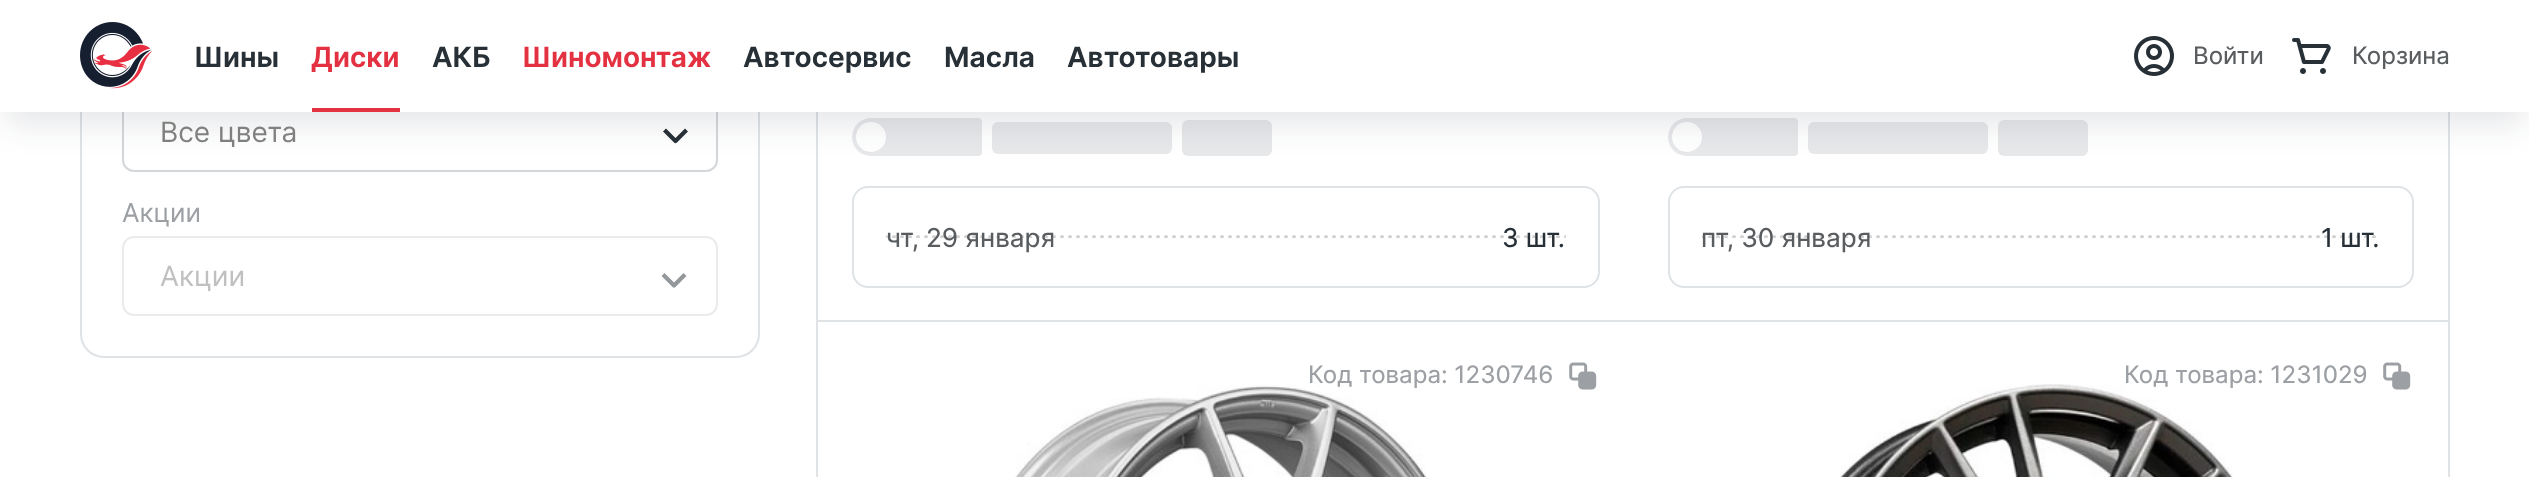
(async () => {
const canvas = document.querySelector("canvas")
canvas.width = 2529
canvas.height = 477
const c = canvas.getContext("2d")
c.miterLimit = 4
c.fontKerning = "normal"
function T(s,x,y){c.fillText(s,x,y)}
function R(x,y,w,h){c.fillRect(x,y,w,h)}
function Q(x,y,w,h,r){c.beginPath();c.roundRect(x,y,w,h,r);c.fill()}
async function I(src,x,y,w,h){const img=new Image();img.src=src;await img.decode();c.drawImage(img,x,y,w,h)}
let path
c.fillStyle="#fff"
R(0,0,2529,477)
c.beginPath()
c.roundRect(81,-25,678,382,23)
c.strokeStyle="#dfe3e6"
c.lineWidth=2
c.stroke()
c.beginPath()
c.roundRect(123,93,594,78,11)
c.strokeStyle="#d4d7da"
c.stroke()
path = new Path2D("M686.5 130l-11 11l-11-11")
c.strokeStyle="#273036"
c.lineWidth=4.2
c.lineJoin="round"
c.stroke(path)
c.strokeStyle="#dfe3e6"
c.lineWidth=2
c.lineJoin="miter"
c.strokeRect(817,-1,1632,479)
c.fillStyle="#e7e8ea"
c.beginPath()
c.roundRect(852,118,130,38,[19,4,4,19])
c.fill()
c.fillStyle="#fff"
c.beginPath()
c.arc(871,137,15,0,7)
c.fill()
c.fillStyle="#e7e8ea"
Q(992,122,180,32,6)
Q(1182,120,90,36,6)
c.beginPath()
c.roundRect(1668,118,130,38,[19,4,4,19])
c.fill()
c.fillStyle="#fff"
c.beginPath()
c.arc(1687,137,15,0,7)
c.fill()
c.fillStyle="#e7e8ea"
Q(1808,122,180,32,6)
Q(1998,120,90,36,6)
c.fillStyle="#161f301a"
c.filter="blur(15px)"
c.beginPath()
c.rect(6,26,2518,100)
c.fill()
c.filter="none"
c.fillStyle="#fff"
R(0,0,2529,112)
await I("1.png",80,22,73,67)
c.font="600 28px Inter"
c.fillStyle="#273036"
T("Шины",194,67)
c.fillStyle="#e43141"
T("Диски",311,67)
R(312,108,88,4)
c.fillStyle="#273036"
T("АКБ",432,67)
c.fillStyle="#e43141"
T("Шиномонтаж",522,67)
c.fillStyle="#273036"
T("Автосервис",743,67)
T("Масла",944,67)
T("Автотовары",1067,67)
await I("2.png",2134,36,40,40)
c.font="24px 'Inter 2'"
c.fillStyle="#595d60"
T("Войти",2193,64)
await I("3.png",2292,38,39,36)
T("Корзина",2352,64)
c.font="28px Inter"
c.fillStyle="#808080"
T("Все цвета",160,142)
c.font="26px Inter"
c.fillStyle="#9ca0a4"
T("Акции",122,222)
c.beginPath()
c.roundRect(123,237,594,78,11)
c.strokeStyle="#eaebed"
c.stroke()
c.font="28px Inter"
c.fillStyle="#c0c0c0"
T("Акции",160,286)
path = new Path2D("M685 274.5l-11 11l-11-11")
c.strokeStyle="#93989b"
c.lineWidth=4.2
c.lineJoin="round"
c.stroke(path)
c.beginPath()
c.roundRect(853,187,746,100,15)
c.strokeStyle="#dfe3e6"
c.lineWidth=2
c.lineJoin="miter"
c.stroke()
await I("4.png",886,235,680,3)
c.font="26px 'Inter 2'"
c.fillStyle="#595d60"
T("чт, 29 января",886,247)
c.fillStyle="#273036"
T("3 шт.",1502,247)
c.fillStyle="#dfe3e6"
R(818,320,1630,2)
c.beginPath()
c.roundRect(1669,187,744,100,15)
c.stroke()
await I("5.png",1702,235,674,3)
c.fillStyle="#595d60"
T("пт, 30 января",1701,247)
c.fillStyle="#273036"
T("1 шт.",2321,247)
await I("7.png",1015,385,411,92)
c.fillStyle="#fff"
Q(1302,360,298,30,6)
c.font="24px 'Inter 2'"
c.fillStyle="#9ca0a4"
T("Код товара: 1230746",1308,383)
await I("6.png",1569,362,28,28)
await I("8.png",1840,384,393,93)
T("Код товара: 1231029",2124,383)
await I("6.png",2383,362,28,28)
})()
